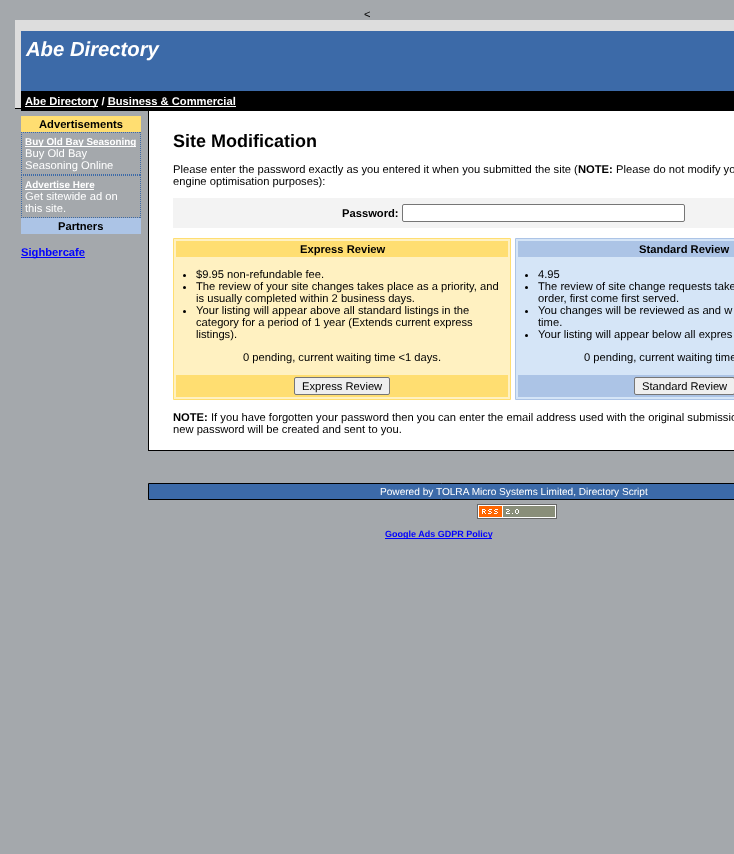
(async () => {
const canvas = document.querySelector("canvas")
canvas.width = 734
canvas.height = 854
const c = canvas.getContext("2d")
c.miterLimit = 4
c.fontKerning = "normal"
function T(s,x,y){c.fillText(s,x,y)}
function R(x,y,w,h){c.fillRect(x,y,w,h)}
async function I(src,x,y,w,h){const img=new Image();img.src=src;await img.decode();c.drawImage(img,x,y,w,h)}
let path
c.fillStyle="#a4a8ac"
R(0,0,734,854)
c.font="11.2px Liberation Sans"
c.fillStyle="#000"
T("<",364,18)
c.fillStyle="#ddd"
R(15,20,719,88)
c.fillStyle="#000"
R(15,108,6,1)
c.fillStyle="#3c6aa8"
R(21,31,713,60)
c.font="italic bold 20.25px Liberation Sans"
c.fillStyle="#fff"
T("Abe Directory",26,56)
c.fillStyle="#000"
R(148,450,586,1)
R(148,109,1,342)
R(21,91,713,20)
c.fillStyle="#fff"
R(25,106,73,1)
c.font="bold 11.2px Liberation Sans"
T("Abe Directory / Business & Commercial",25,105)
R(107,106,129,1)
c.fillStyle="#ffde71"
R(21,116,120,16)
c.fillStyle="#000"
T("Advertisements",39,128)
path = new Path2D("M21 132.5h120")
c.strokeStyle="#3c6aa8"
c.setLineDash([1,1])
c.stroke(path)
path = new Path2D("M140.5 132v43")
c.stroke(path)
path = new Path2D("M21 174.5h120")
c.stroke(path)
path = new Path2D("M21.5 132v43")
c.stroke(path)
c.fillStyle="#fff"
R(25,146,111,1)
c.font="bold 9.9px Liberation Sans"
T("Buy Old Bay Seasoning",25,145)
c.font="11.2px Liberation Sans"
T("Buy Old Bay",25,157)
T("Seasoning Online",25,169)
path = new Path2D("M21 175.5h120")
c.stroke(path)
path = new Path2D("M140.5 175v43")
c.stroke(path)
path = new Path2D("M21 217.5h120")
c.stroke(path)
path = new Path2D("M21.5 175v43")
c.stroke(path)
c.font="bold 9.9px Liberation Sans"
T("Advertise Here",25,188)
R(25,189,69,1)
c.font="11.2px Liberation Sans"
T("Get sitewide ad on",25,200)
T("this site.",25,212)
c.fillStyle="#acc4e6"
R(21,218,120,16)
c.font="bold 11.2px Liberation Sans"
c.fillStyle="#000"
T("Partners",58,230)
c.fillStyle="#00f"
R(21,257,64,1)
T("Sighbercafe",21,256)
c.fillStyle="#fff"
R(149,111,585,339)
c.font="bold 18px Liberation Sans"
c.fillStyle="#000"
T("Site Modification",173,147)
c.font="11.2px Liberation Sans"
T("Please enter the password exactly as you entered it when you submitted the site (",173,173)
c.font="bold 11.2px Liberation Sans"
T("NOTE:",578,173)
c.font="11.2px Liberation Sans"
T("Please do not modify yo",616,173)
T("engine optimisation purposes):",173,185)
c.fillStyle="#f3f3f3"
R(173,198,561,30)
c.font="bold 11.2px Liberation Sans"
c.fillStyle="#000"
T("Password:",342,217)
c.fillStyle="#fff"
c.beginPath()
c.roundRect(402.5,204.5,282,17,1.5)
c.fill()
c.strokeStyle="#767676"
c.setLineDash([])
c.stroke()
c.fillStyle="#fff1c1"
c.beginPath()
c.rect(173.5,238.5,337,161)
c.fill()
c.strokeStyle="#ffde71"
c.stroke()
c.fillStyle="#ffde71"
R(176,241,332,16)
c.fillStyle="#000"
T("Express Review",300,253)
c.beginPath()
c.arc(184.5,275.5,1.5,0,7)
c.fill()
c.font="11.2px Liberation Sans"
T("$9.95 non-refundable fee.",196,278)
c.beginPath()
c.arc(184.5,287.5,1.5,0,7)
c.fill()
T("The review of your site changes takes place as a priority, and",196,290)
T("is usually completed within 2 business days.",196,302)
c.beginPath()
c.arc(184.5,311.5,1.5,0,7)
c.fill()
T("Your listing will appear above all standard listings in the",196,314)
T("category for a period of 1 year (Extends current express",196,326)
T("listings).",196,338)
T("0 pending, current waiting time <1 days.",243,361)
c.fillStyle="#ffde71"
R(176,375,332,22)
c.fillStyle="#efefef"
c.beginPath()
c.roundRect(294.5,377.5,95,17,1.5)
c.fill()
c.strokeStyle="#767676"
c.stroke()
c.fillStyle="#000"
T("Express Review",302,390)
c.fillStyle="#d5e5f7"
c.beginPath()
c.rect(515.5,238.5,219,161)
c.fill()
c.strokeStyle="#acc4e6"
c.stroke()
c.fillStyle="#acc4e6"
R(518,241,216,16)
c.font="bold 11.2px Liberation Sans"
c.fillStyle="#000"
T("Standard Review",639,253)
c.beginPath()
c.arc(526.5,275.5,1.5,0,7)
c.fill()
c.font="11.2px Liberation Sans"
T("4.95",538,278)
c.beginPath()
c.arc(526.5,287.5,1.5,0,7)
c.fill()
T("The review of site change requests take",538,290)
T("order, first come first served.",538,302)
c.beginPath()
c.arc(526.5,311.5,1.5,0,7)
c.fill()
T("You changes will be reviewed as and w",538,314)
T("time.",538,326)
c.beginPath()
c.arc(526.5,335.5,1.5,0,7)
c.fill()
T("Your listing will appear below all expres",538,338)
T("0 pending, current waiting time",584,361)
c.fillStyle="#acc4e6"
R(518,375,216,22)
c.fillStyle="#efefef"
c.beginPath()
c.roundRect(634.5,377.5,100,17,1.5)
c.fill()
c.strokeStyle="#767676"
c.stroke()
c.fillStyle="#000"
T("Standard Review",642,390)
c.font="bold 11.2px Liberation Sans"
T("NOTE:",173,421)
c.font="11.2px Liberation Sans"
T("If you have forgotten your password then you can enter the email address used with the original submissio",211,421)
T("new password will be created and sent to you.",173,433)
c.fillStyle="#3c6aa8"
c.beginPath()
c.rect(148.5,483.5,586,16)
c.fill()
c.strokeStyle="#000"
c.stroke()
c.font="10.1px Liberation Sans"
c.fillStyle="#fff"
T("Powered by TOLRA Micro Systems Limited, Directory Script",380,495)
await I("1.png",477,504,80,15)
c.fillStyle="#00f"
R(385,538,107,1)
c.font="bold 9px Liberation Sans"
T("Google Ads GDPR Policy",385,537)
})()
